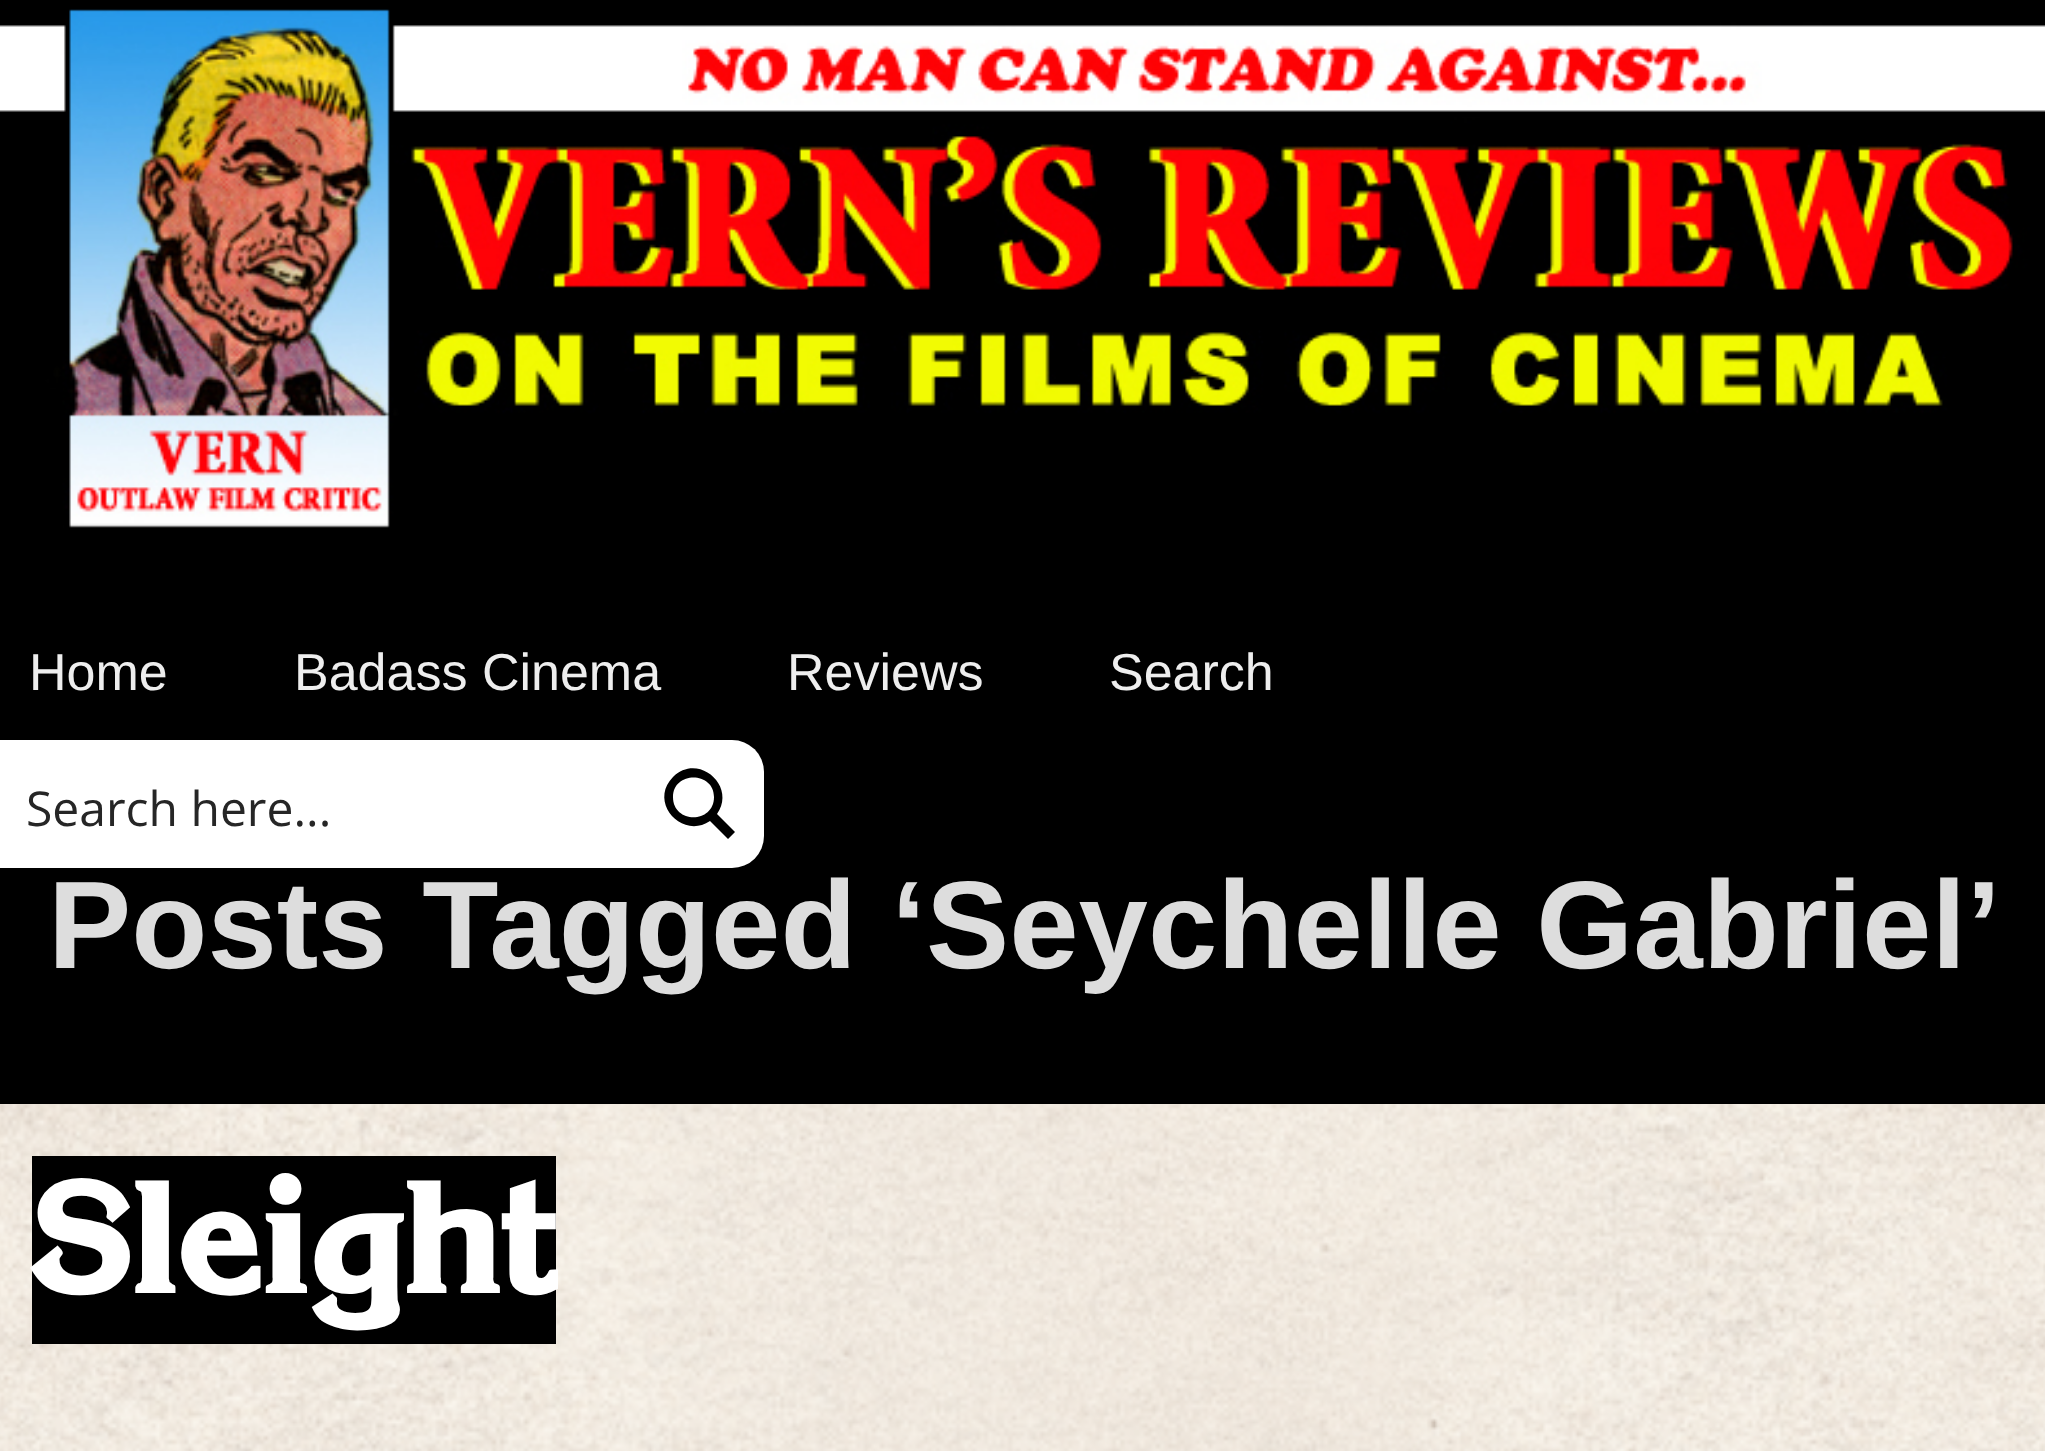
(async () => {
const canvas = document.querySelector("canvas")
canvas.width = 2045
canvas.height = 1451
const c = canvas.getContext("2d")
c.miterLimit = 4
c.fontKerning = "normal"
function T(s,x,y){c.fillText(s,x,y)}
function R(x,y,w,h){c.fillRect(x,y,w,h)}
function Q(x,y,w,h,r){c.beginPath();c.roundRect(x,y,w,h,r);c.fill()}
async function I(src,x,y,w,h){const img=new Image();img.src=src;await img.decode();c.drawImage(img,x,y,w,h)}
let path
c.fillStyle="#000"
R(0,0,2045,1451)
await I("1.png",0,9,2045,519)
c.font="52px Liberation Sans"
c.fillStyle="#eee"
T("Home",29,690)
T("Badass Cinema",294,690)
T("Reviews",787,690)
T("Search",1109,690)
c.fillStyle="#fff"
Q(-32,740,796,128,32)
c.font="48px Open Sans"
c.fillStyle="#262626"
T("Search here...",26,826)
c.fillStyle="#000"
path = new Path2D("M735 832l-18-18c20-28-19-62-44-37c-25 25 9 63 37 44l18 18zm-62-35c0-26 41-26 41 0c0 27-41 27-41 0z")
c.fill(path)
c.font="bold 124.75px Liberation Sans"
c.fillStyle="#ddd"
T("Posts Tagged ‘Seychelle Gabriel’",48,968)
await I("2.png",0,1104,2045,347)
c.fillStyle="#000"
R(32,1156,524,188)
c.font="bold 156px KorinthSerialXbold"
c.fillStyle="#fff"
T("Sleight",32,1293)
})()
